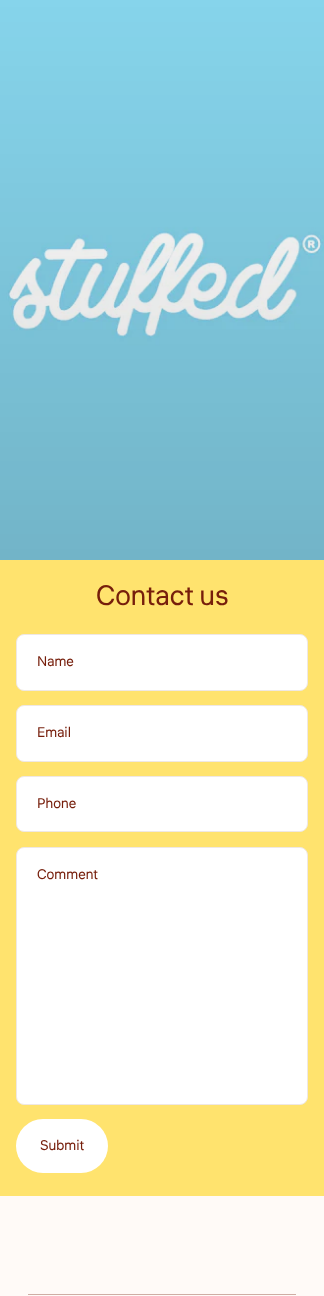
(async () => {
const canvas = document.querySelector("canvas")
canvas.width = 324
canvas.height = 1296
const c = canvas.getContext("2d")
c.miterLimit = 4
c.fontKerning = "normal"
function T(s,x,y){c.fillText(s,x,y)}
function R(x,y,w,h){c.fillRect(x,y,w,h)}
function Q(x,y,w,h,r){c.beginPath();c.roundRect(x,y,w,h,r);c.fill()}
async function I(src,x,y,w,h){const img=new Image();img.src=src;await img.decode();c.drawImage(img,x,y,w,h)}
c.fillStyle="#fffaf7"
R(0,0,324,1296)
await I("1.png",0,0,324,560)
c.fillStyle="#ffe36e"
R(0,560,324,636)
c.font="28px Liter"
c.fillStyle="#761e0b"
T("Contact us",96,605)
c.fillStyle="#fff"
c.beginPath()
c.roundRect(16.5,634.5,291,56,7.5)
c.fill()
c.strokeStyle="#efe8e3"
c.stroke()
c.font="14px Liter"
c.fillStyle="#761e0b"
T("Name",37,666)
c.fillStyle="#fff"
c.beginPath()
c.roundRect(16.5,705.5,291,56,7.5)
c.fill()
c.stroke()
c.fillStyle="#761e0b"
T("Email",37,737)
c.fillStyle="#fff"
c.beginPath()
c.roundRect(16.5,776.5,291,55,7.5)
c.fill()
c.stroke()
c.fillStyle="#761e0b"
T("Phone",37,808)
c.fillStyle="#fff"
c.beginPath()
c.roundRect(16.5,847.5,291,257,7.5)
c.fill()
c.stroke()
c.fillStyle="#761e0b"
T("Comment",37,879)
c.fillStyle="#fff"
Q(16,1119,92,54,27)
c.fillStyle="#761e0b"
T("Submit",40,1150)
c.fillStyle="#cfada4"
R(28,1294,268,1)
})()
